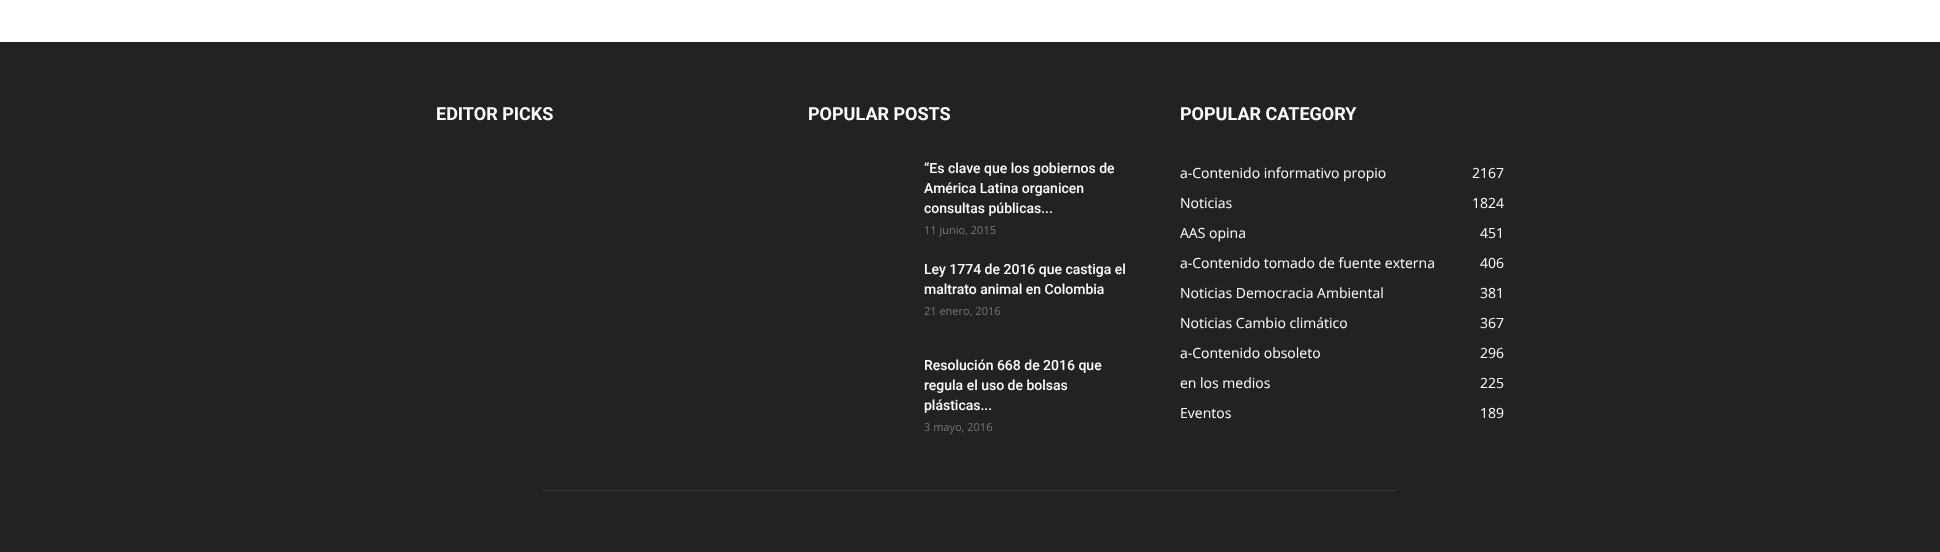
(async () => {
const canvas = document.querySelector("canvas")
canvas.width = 1940
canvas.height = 552
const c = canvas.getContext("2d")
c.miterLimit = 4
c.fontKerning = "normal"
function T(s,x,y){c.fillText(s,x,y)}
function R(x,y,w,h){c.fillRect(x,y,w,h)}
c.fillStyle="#fff"
R(0,0,1940,552)
c.fillStyle="#222"
R(0,42,1940,510)
c.font="bold 18px Roboto"
c.fillStyle="#fff"
T("EDITOR PICKS",436,120)
T("POPULAR POSTS",808,120)
c.font="500 14px Roboto"
T("“Es clave que los gobiernos de",924,173)
T("América Latina organicen",924,193)
T("consultas públicas...",924,213)
c.font="11px Open Sans"
c.fillStyle="#767676"
T("11 junio, 2015",924,234)
c.font="500 14px Roboto"
c.fillStyle="#fff"
T("Ley 1774 de 2016 que castiga el",924,274)
T("maltrato animal en Colombia",924,294)
c.font="11px Open Sans"
c.fillStyle="#767676"
T("21 enero, 2016",924,315)
c.font="500 14px Roboto"
c.fillStyle="#fff"
T("Resolución 668 de 2016 que",924,370)
T("regula el uso de bolsas",924,390)
T("plásticas...",924,410)
c.font="11px Open Sans"
c.fillStyle="#767676"
T("3 mayo, 2016",924,431)
c.font="bold 18px Roboto"
c.fillStyle="#fff"
T("POPULAR CATEGORY",1180,120)
c.font="14px Open Sans"
T("a-Contenido informativo propio",1180,178)
T("2167",1472,178)
T("Noticias",1180,208)
T("1824",1472,208)
T("AAS opina",1180,238)
T("451",1480,238)
T("a-Contenido tomado de fuente externa",1180,268)
T("406",1480,268)
T("Noticias Democracia Ambiental",1180,298)
T("381",1480,298)
T("Noticias Cambio climático",1180,328)
T("367",1480,328)
T("a-Contenido obsoleto",1180,358)
T("296",1480,358)
T("en los medios",1180,388)
T("225",1480,388)
T("Eventos",1180,418)
T("189",1480,418)
c.fillStyle="#383838"
R(543,490,854,1)
})()
